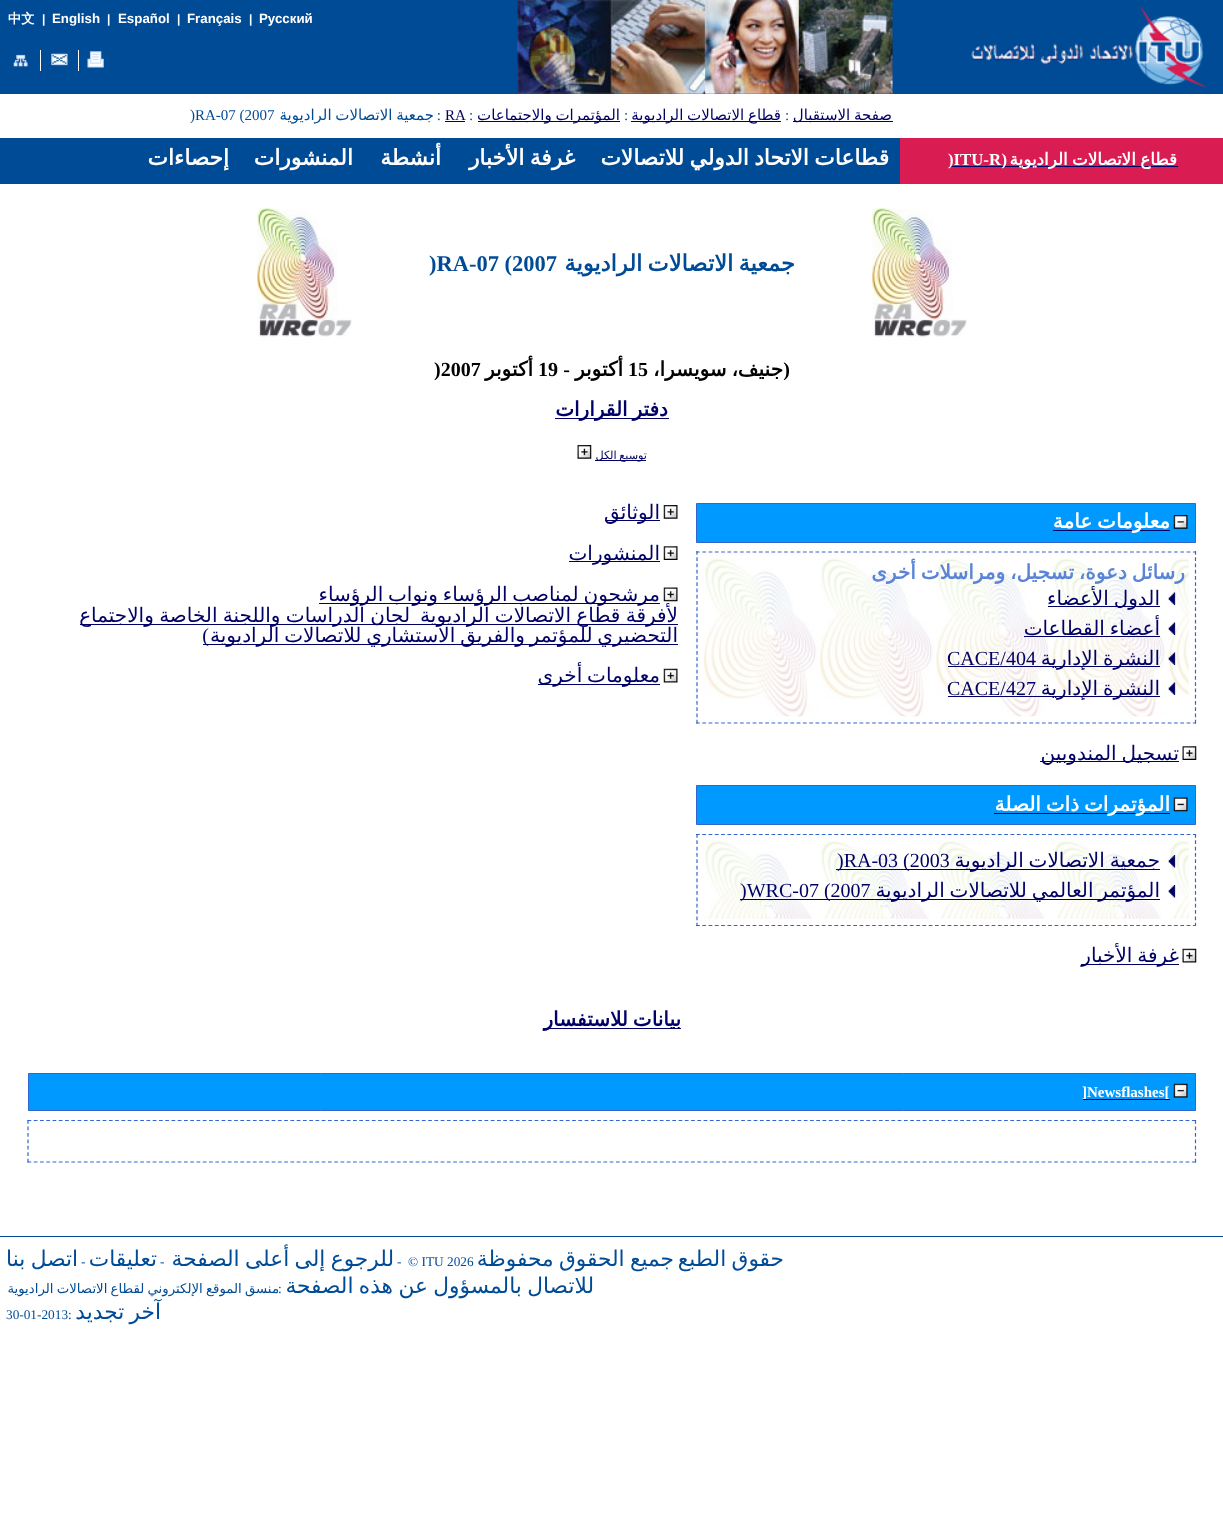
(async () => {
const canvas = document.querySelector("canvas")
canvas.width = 1223
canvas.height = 1525
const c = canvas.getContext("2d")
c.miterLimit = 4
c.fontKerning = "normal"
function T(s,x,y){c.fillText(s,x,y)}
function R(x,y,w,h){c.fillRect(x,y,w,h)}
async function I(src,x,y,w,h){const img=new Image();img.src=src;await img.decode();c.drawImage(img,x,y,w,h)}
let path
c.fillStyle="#fff"
R(0,0,1223,1525)
c.fillStyle="#004b96"
R(0,0,1223,94)
await I("1.png",970,5,238,83)
await I("2.png",517,0,376,94)
c.font="bold 13.3px Liberation Sans"
c.fillStyle="#fff"
T("Русский",259,23)
c.font="bold 12px Liberation Sans"
T("|",249,23)
c.font="bold 13.3px Liberation Sans"
T("Français",187,23)
c.font="bold 12px Liberation Sans"
T("|",177,23)
c.font="bold 13.3px Liberation Sans"
T("Español",118,23)
c.font="bold 12px Liberation Sans"
T("|",107,23)
c.font="bold 13.3px Liberation Sans"
T("English",52,23)
c.font="bold 12px Liberation Sans"
T("|",42,23)
c.font="bold 13.3px WenQuanYi Zen Hei"
T("中文",8,23)
await I("3.png",87,51,17,17)
R(78,50,1,21)
await I("4.png",51,53,17,13)
R(40,50,1,21)
await I("5.png",13,54,15,13)
c.fillStyle="#006"
R(793,121,100,1)
c.wordSpacing="-1px"
c.direction="rtl"
c.font="15px DejaVu Sans"
T("صفحة الاستقبال",892,120)
c.wordSpacing="0px"
c.direction="ltr"
c.font="15px Liberation Serif"
c.fillStyle="#004b96"
T(":",785,120)
c.fillStyle="#006"
R(631,121,150,1)
c.wordSpacing="-1px"
c.direction="rtl"
c.font="15px DejaVu Sans"
T("قطاع الاتصالات الراديوية",781,120)
c.wordSpacing="0px"
c.direction="ltr"
c.font="15px Liberation Serif"
c.fillStyle="#004b96"
T(":",624,120)
c.fillStyle="#006"
R(478,121,142,1)
c.wordSpacing="-1px"
c.direction="rtl"
c.font="15px DejaVu Sans"
T("المؤتمرات والاجتماعات",620,120)
c.wordSpacing="0px"
c.direction="ltr"
c.font="15px Liberation Serif"
c.fillStyle="#004b96"
T(":",469,120)
c.fillStyle="#006"
T("RA",445,120)
R(445,121,20,1)
c.direction="rtl"
c.fillStyle="#004b96"
T(":",441,120)
c.wordSpacing="-1px"
c.font="15px DejaVu Sans"
T("جمعية الاتصالات الراديوية",434,120)
c.wordSpacing="0px"
c.direction="ltr"
c.font="15px Liberation Serif"
T(")RA-07 (2007",190,120)
c.fillStyle="#d91d52"
R(900,138,323,46)
c.fillStyle="#006"
R(949,166,52,1)
c.font="bold 16.75px Liberation Serif"
c.fillStyle="#fff"
T(")ITU-R",948,165)
c.fillStyle="#006"
R(1001,166,177,1)
c.wordSpacing="-1px"
c.direction="rtl"
c.font="bold 16.75px DejaVu Sans"
c.fillStyle="#fff"
T("قطاع الاتصالات الراديوية",1177,165)
c.wordSpacing="0px"
c.font="bold 16.75px Liberation Serif"
T("(",1007,165)
c.fillStyle="#004b96"
R(0,138,900,46)
R(0,1236,1223,1)
await I("6.png",872,208,95,129)
c.wordSpacing="-2px"
c.font="bold 22.5px DejaVu Sans"
T("جمعية الاتصالات الراديوية",795,271)
c.wordSpacing="0px"
c.direction="ltr"
c.font="bold 22.5px Liberation Serif"
T(")RA-07 (2007",429,271)
await I("6.png",257,208,95,129)
c.direction="rtl"
c.font="bold 20px Liberation Serif"
c.fillStyle="#000"
T("(",790,376)
c.wordSpacing="-1.5px"
c.font="bold 20px DejaVu Sans"
T("جنيف، سويسرا،",783,376)
c.wordSpacing="0px"
c.direction="ltr"
c.font="bold 20px Liberation Serif"
T("15",628,376)
c.direction="rtl"
c.font="bold 20px DejaVu Sans"
T("أكتوبر",623,376)
c.font="bold 20px Liberation Serif"
T("-",570,376)
c.direction="ltr"
T("19",538,376)
c.direction="rtl"
c.font="bold 20px DejaVu Sans"
T("أكتوبر",533,376)
c.direction="ltr"
c.font="bold 20px Liberation Serif"
T(")2007",434,376)
c.fillStyle="#006"
R(555,418,114,1)
c.wordSpacing="-1.5px"
c.direction="rtl"
c.font="bold 20px DejaVu Sans"
T("دفتر القرارات",668,416)
R(595,460,51,1)
c.wordSpacing="-1px"
c.font="11.25px DejaVu Sans"
T("توسيع الكل",647,459)
await I("7.png",577,445,15,14)
c.fillStyle="#09f"
c.beginPath()
c.rect(696.5,503.5,499,39)
c.fill()
c.strokeStyle="#36c"
c.stroke()
await I("8.png",1173,515,15,14)
c.fillStyle="#006"
R(1053,530,117,1)
c.wordSpacing="-1.5px"
c.font="bold 20px DejaVu Sans"
c.fillStyle="#fff"
T("معلومات عامة",1170,528)
path = new Path2D("M696 552h500")
c.lineWidth=1.2
c.setLineDash([3.75,2.54])
c.stroke(path)
path = new Path2D("M1195.5 551v173")
c.setLineDash([3.75,2.5])
c.stroke(path)
path = new Path2D("M696 723h500")
c.setLineDash([3.75,2.54])
c.stroke(path)
path = new Path2D("M697 551v173")
c.setLineDash([3.75,2.5])
c.stroke(path)
await I("9.png",704,558,485,159)
c.fillStyle="#5b84d7"
T("رسائل دعوة، تسجيل، ومراسلات أخرى",1185,579)
await I("10.png",1168,592,8,13)
c.fillStyle="#006"
R(1048,606,112,1)
c.font="20px DejaVu Sans"
T("الدول الأعضاء",1160,605)
await I("11.png",1168,622,8,13)
T("أعضاء القطاعات",1160,635)
R(1024,636,136,1)
await I("12.png",1168,652,8,13)
R(948,666,212,1)
T("النشرة الإدارية",1160,665)
c.wordSpacing="0px"
c.direction="ltr"
c.font="20px Liberation Serif"
T("CACE/404",947,665)
await I("13.png",1168,682,8,13)
R(948,696,212,1)
c.wordSpacing="-1.5px"
c.direction="rtl"
c.font="20px DejaVu Sans"
T("النشرة الإدارية",1160,695)
c.wordSpacing="0px"
c.direction="ltr"
c.font="20px Liberation Serif"
T("CACE/427",947,695)
await I("14.png",1182,746,15,14)
R(1040,761,139,1)
c.wordSpacing="-1.5px"
c.direction="rtl"
c.font="20px DejaVu Sans"
T("تسجيل المندوبين",1179,760)
c.fillStyle="#09f"
c.beginPath()
c.rect(696.5,785.5,499,39)
c.fill()
c.lineWidth=1
c.setLineDash([])
c.stroke()
await I("15.png",1173,797,15,15)
c.fillStyle="#006"
R(994,813,176,1)
c.font="bold 20px DejaVu Sans"
c.fillStyle="#fff"
T("المؤتمرات ذات الصلة",1170,811)
path = new Path2D("M696 834.5h500")
c.lineWidth=1.2
c.setLineDash([3.75,2.54])
c.stroke(path)
path = new Path2D("M1195.5 834v92")
c.setLineDash([3.75,2.59])
c.stroke(path)
path = new Path2D("M696 925.5h500")
c.setLineDash([3.75,2.54])
c.stroke(path)
path = new Path2D("M697 834v92")
c.setLineDash([3.75,2.59])
c.stroke(path)
await I("16.png",704,841,485,78)
await I("17.png",1168,855,8,13)
c.fillStyle="#006"
R(836,869,324,1)
c.font="20px DejaVu Sans"
T("جمعية الاتصالات الراديوية",1160,867)
c.wordSpacing="0px"
c.direction="ltr"
c.font="20px Liberation Serif"
T(")RA-03 (2003",837,867)
await I("18.png",1168,885,8,13)
R(740,899,420,1)
c.wordSpacing="-1.5px"
c.direction="rtl"
c.font="20px DejaVu Sans"
T("المؤتمر العالمي للاتصالات الراديوية",1160,897)
c.wordSpacing="0px"
c.direction="ltr"
c.font="20px Liberation Serif"
T(")WRC-07 (2007",740,897)
await I("19.png",1182,948,15,15)
R(1081,964,98,1)
c.wordSpacing="-1.5px"
c.direction="rtl"
c.font="20px DejaVu Sans"
T("غرفة الأخبار",1179,962)
await I("20.png",663,505,15,14)
R(605,520,55,1)
c.wordSpacing="0px"
T("الوثائق",660,519)
await I("21.png",663,546,15,14)
R(569,561,91,1)
T("المنشورات",660,560)
await I("22.png",663,587,15,15)
R(319,603,341,1)
c.wordSpacing="-1.5px"
T("مرشحون لمناصب الرؤساء ونواب الرؤساء",660,601)
R(80,624,598,1)
c.wordSpacing="-1px"
T("لأفرقة قطاع الاتصالات الراديوية",678,622)
T("لجان الدراسات واللجنة الخاصة والاجتماع",410,622)
R(203,644,475,1)
c.wordSpacing="-1.5px"
T("التحضيري للمؤتمر والفريق الاستشاري للاتصالات الراديوية",678,642)
c.wordSpacing="0px"
c.font="20px Liberation Serif"
T(")",209,642)
await I("23.png",663,668,15,15)
R(538,684,122,1)
c.wordSpacing="-1.5px"
c.font="20px DejaVu Sans"
T("معلومات أخرى",660,682)
R(543,1028,138,1)
c.font="bold 20px DejaVu Sans"
T("بيانات للاستفسار",681,1026)
c.fillStyle="#09f"
c.beginPath()
c.rect(28.5,1073.5,1167,37)
c.fill()
c.lineWidth=1
c.setLineDash([])
c.stroke()
await I("24.png",1173,1083,15,15)
c.wordSpacing="0px"
c.direction="ltr"
c.font="bold 15px Liberation Serif"
c.fillStyle="#fff"
T("]Newsflashes[",1082,1097)
c.fillStyle="#006"
R(1083,1099,87,1)
path = new Path2D("M27.5 1120.5h1168.5")
c.lineWidth=1.2
c.setLineDash([3.75,2.51])
c.stroke(path)
path = new Path2D("M1195.5 1120v42.5")
c.setLineDash([3.75,2.71])
c.stroke(path)
path = new Path2D("M27.5 1162h1168.5")
c.setLineDash([3.75,2.51])
c.stroke(path)
path = new Path2D("M28 1120v42.5")
c.setLineDash([3.75,2.71])
c.stroke(path)
c.wordSpacing="-1.5px"
c.direction="rtl"
c.font="21.7px DejaVu Sans"
c.fillStyle="#004b96"
T("حقوق الطبع",784,1266)
T("جميع الحقوق محفوظة",674,1266)
c.wordSpacing="0px"
c.direction="ltr"
c.font="13.3px Liberation Serif"
T("-  © ITU 2026",397,1266)
c.wordSpacing="-1.5px"
c.direction="rtl"
c.font="21.7px DejaVu Sans"
T("للرجوع إلى أعلى الصفحة",394,1266)
c.wordSpacing="0px"
c.direction="ltr"
c.font="13.3px Liberation Serif"
T("-",160,1266)
c.direction="rtl"
c.font="21.7px DejaVu Sans"
T("تعليقات",157,1266)
c.direction="ltr"
c.font="13.3px Liberation Serif"
T("-",81,1266)
c.wordSpacing="-1.5px"
c.direction="rtl"
c.font="21.7px DejaVu Sans"
T("اتصل بنا",78,1266)
T("للاتصال بالمسؤول عن هذه الصفحة",594,1293)
c.wordSpacing="0px"
c.direction="ltr"
c.font="13.3px Liberation Serif"
T(":",278,1293)
c.wordSpacing="-1px"
c.direction="rtl"
c.font="13.3px DejaVu Sans"
T("منسق الموقع الإلكتروني لقطاع الاتصالات الراديوية",279,1293)
c.wordSpacing="-1.5px"
c.font="21.7px DejaVu Sans"
T("آخر تجديد",161,1319)
c.wordSpacing="0px"
c.direction="ltr"
c.font="13.3px Liberation Serif"
T("30-01-2013:",6,1319)
c.wordSpacing="-1.5px"
c.direction="rtl"
c.font="bold 21.7px DejaVu Sans"
c.fillStyle="#fff"
T("قطاعات الاتحاد الدولي للاتصالات",889,165)
T("غرفة الأخبار",575,165)
c.wordSpacing="0px"
T("أنشطة",441,165)
T("المنشورات",353,165)
T("إحصاءات",229,165)
})()
